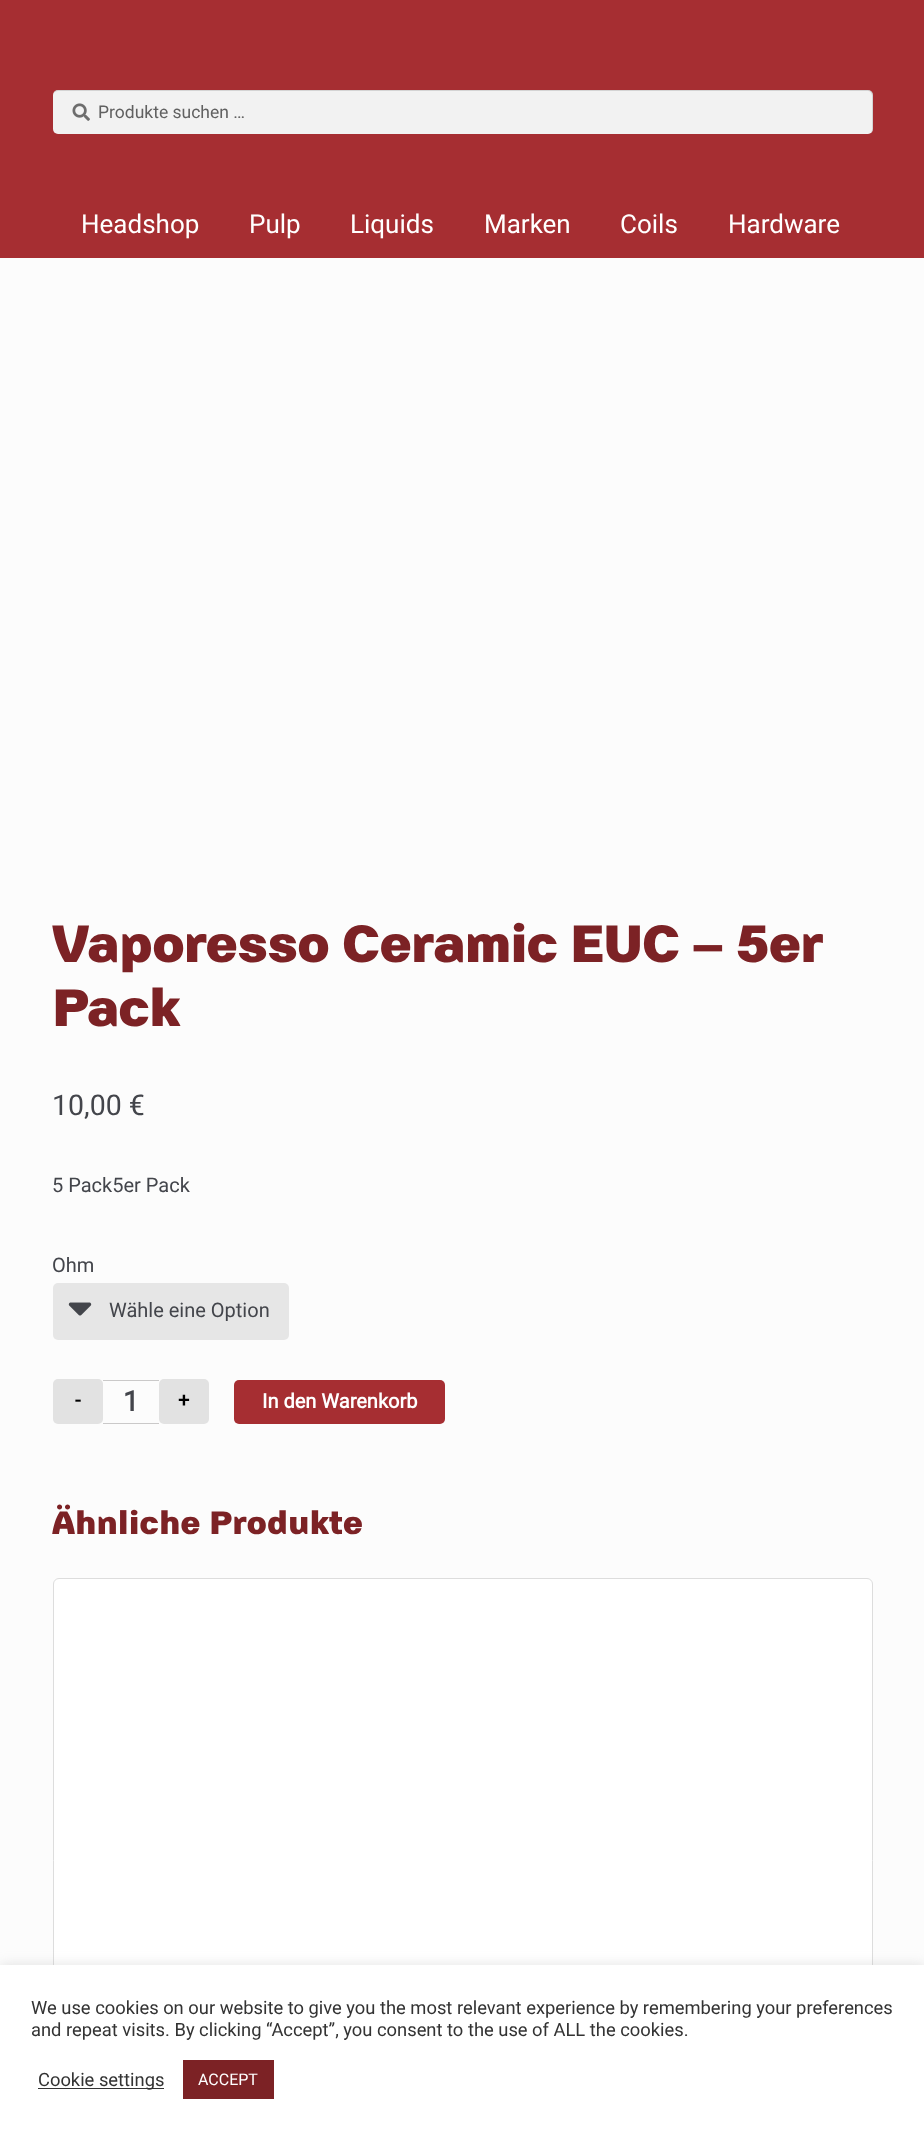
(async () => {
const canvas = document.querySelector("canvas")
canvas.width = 924
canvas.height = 2136
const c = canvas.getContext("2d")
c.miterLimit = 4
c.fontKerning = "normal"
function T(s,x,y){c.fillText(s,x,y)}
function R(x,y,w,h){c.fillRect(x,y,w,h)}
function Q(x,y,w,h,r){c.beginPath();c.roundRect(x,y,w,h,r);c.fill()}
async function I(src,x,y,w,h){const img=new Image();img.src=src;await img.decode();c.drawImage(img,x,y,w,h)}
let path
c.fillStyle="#fcfcfc"
R(0,0,924,2136)
c.fillStyle="#a62e32"
R(0,0,924,258)
c.fillStyle="#f2f2f2"
Q(53,90,820,44,5)
c.fillStyle="#0000001f"
path = new Path2D("M58 91h810c2 0 4 2 4 5v34l-1 3c1-1 2-3 2-4v-34c0-3-2-5-5-5h-810c-2 0-4 1-4 3c1-1 2-2 4-2z")
c.fill(path)
await I("1.png",72,103,18,18)
c.font="17.5px Roboto"
c.fillStyle="#616161"
T("Produkte suchen …",98,118)
c.font="26px Roboto"
c.fillStyle="#fff"
T("Headshop",81,233)
T("Pulp",249,233)
T("Liquids",350,233)
T("Marken",484,233)
T("Coils",620,233)
T("Hardware",728,233)
c.letterSpacing="-1.25px"
c.font="900 52.4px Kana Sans"
c.fillStyle="#7c2225"
T("Vaporesso Ceramic EUC – 5er",52,962)
T("Pack",52,1026)
c.letterSpacing="0px"
c.font="28.5px Roboto"
c.fillStyle="#43454b"
T("10,00 €",52,1115)
c.font="20px Roboto"
T("5 Pack5er Pack",52,1192)
T("Ohm",52,1272)
c.fillStyle="#e6e6e6"
Q(53,1283,236,57,5)
await I("2.png",68,1302,24,14)
c.fillStyle="#43454b"
T("Wähle eine Option",109,1317)
c.fillStyle="#e2e2e2"
Q(53,1379,50,45,5)
c.font="bold 20px Roboto"
c.fillStyle="#000"
T("-",75,1407)
c.fillStyle="#cac9c9"
R(103,1380,56,1)
R(103,1423,56,1)
c.font="bold 28px Roboto"
c.fillStyle="#43454b"
T("1",123,1411)
c.fillStyle="#e2e2e2"
Q(159,1379,50,45,5)
c.font="bold 20px Roboto"
c.fillStyle="#000"
T("+",178,1407)
c.fillStyle="#a62e32"
Q(234,1380,211,44,5)
c.fillStyle="#fff"
T("In den Warenkorb",262,1408)
c.font="900 32.4px Kana Sans"
c.fillStyle="#7c2225"
T("Ähnliche Produkte",52,1534)
c.fillStyle="#fff"
c.beginPath()
c.roundRect(53.5,1578.5,819,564,5.5)
c.fill()
c.strokeStyle="#ddd"
c.stroke()
c.fillStyle="#acabab4d"
c.filter="blur(6px)"
c.beginPath()
c.rect(0,1964,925,171)
c.fill()
c.filter="none"
c.fillStyle="#fff"
R(0,1965,924,171)
c.font="18.35px Roboto"
c.fillStyle="#333"
T("We use cookies on our website to give you the most relevant experience by remembering your preferences",31,2014)
T("and repeat visits. By clicking “Accept”, you consent to the use of ALL the cookies.",31,2036)
R(38,2088,126,1)
T("Cookie settings",38,2086)
c.fillStyle="#7c2225"
R(183,2060,91,39)
c.font="16px Roboto"
c.fillStyle="#fff"
T("ACCEPT",198,2085)
})()
